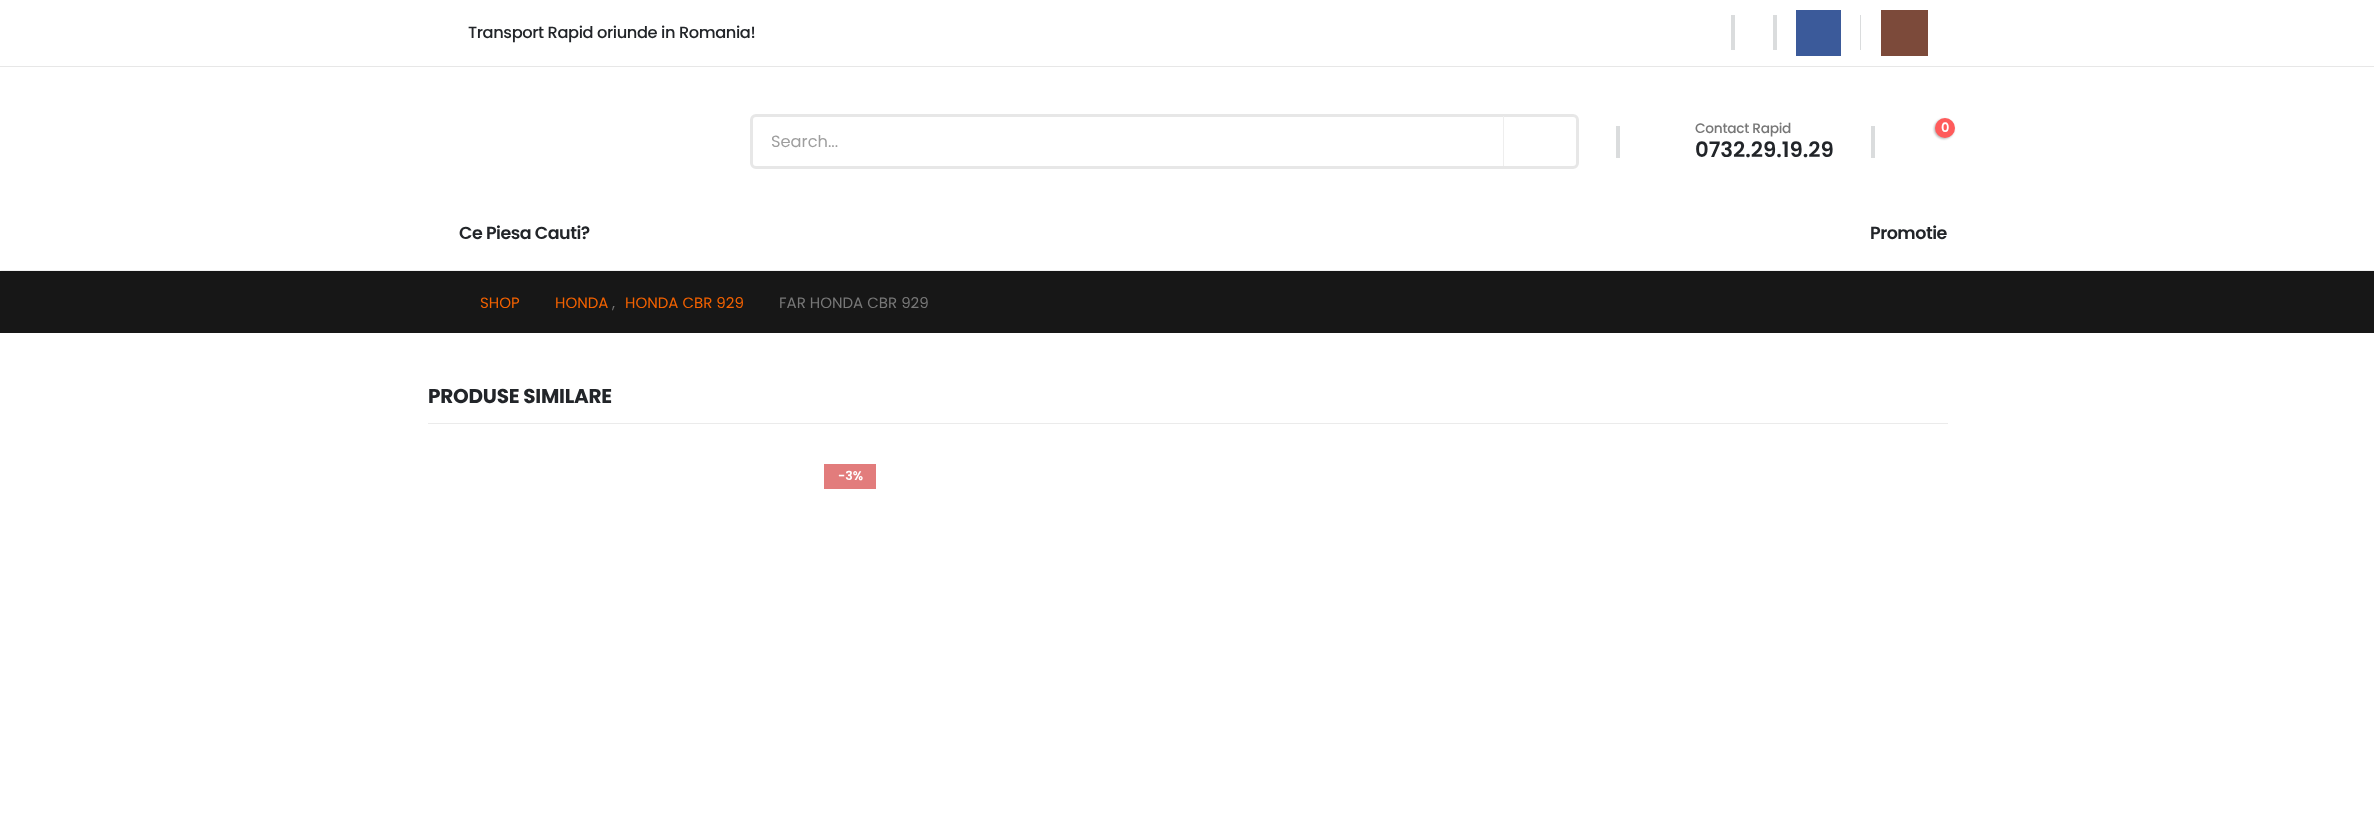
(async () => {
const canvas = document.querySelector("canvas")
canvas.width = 2374
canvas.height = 833
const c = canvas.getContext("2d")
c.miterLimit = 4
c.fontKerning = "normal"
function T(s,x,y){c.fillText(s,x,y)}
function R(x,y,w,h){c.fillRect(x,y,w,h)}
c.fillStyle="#fff"
R(0,0,2374,833)
c.fillStyle="#171717"
R(0,271,2374,62)
c.save()
c.beginPath()
c.rect(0,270,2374,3)
c.clip()
c.fillStyle="#0000000f"
c.filter="blur(1px)"
c.beginPath()
c.rect(0,3,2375,270)
c.fill()
c.filter="none"
c.restore()
c.fillStyle="#e7e7e7"
R(0,66,2374,1)
c.letterSpacing="-0.4px"
c.font="500 16.25px Poppins"
c.fillStyle="#222529"
T("Transport Rapid oriunde in Romania!",468,38)
c.fillStyle="#dadcdd"
R(1731,15,4,35)
R(1773,15,4,35)
c.fillStyle="#3b5a9a"
R(1796,10,45,46)
c.fillStyle="#7c4a3a"
R(1881,10,47,46)
c.fillStyle="#dadcdd"
R(1860,15,1,35)
c.beginPath()
c.roundRect(751.5,115.5,826,52,4.5)
c.strokeStyle="#e7e7e7"
c.lineWidth=3
c.stroke()
c.fillStyle="#eee"
R(1503,116,1,50)
c.letterSpacing="0px"
c.font="16.25px Poppins"
c.fillStyle="#9e9e9e"
T("Search...",771,147)
c.fillStyle="#dadcdd"
R(1616,126,4,32)
c.letterSpacing="-0.3px"
c.font="500 13.75px Poppins"
c.fillStyle="#777"
T("Contact Rapid",1695,133)
c.letterSpacing="0px"
c.font="600 21.25px Poppins"
c.fillStyle="#222529"
T("0732.29.19.29",1695,157)
c.fillStyle="#dadcdd"
R(1871,126,4,32)
c.fillStyle="#0000004d"
c.filter="blur(1px)"
c.beginPath()
c.roundRect(1934,119,20,20,10)
c.fill()
c.filter="none"
c.fillStyle="#ff5b5b"
c.beginPath()
c.arc(1945,128,10,0,7)
c.fill()
c.font="600 13px Poppins"
c.fillStyle="#fff"
T("0",1941,132)
c.letterSpacing="-0.5px"
c.font="600 17.5px Poppins"
c.fillStyle="#222529"
T("Ce Piesa Cauti?",459,239)
T("Promotie",1870,239)
c.letterSpacing="0px"
c.font="15px Poppins"
c.fillStyle="#f26100"
T("SHOP",480,308)
T("HONDA",555,308)
c.fillStyle="#777"
T(",",612,308)
c.fillStyle="#f26100"
T("HONDA CBR 929",625,308)
c.fillStyle="#777"
T("FAR HONDA CBR 929",779,308)
c.fillStyle="#ebebeb"
R(428,423,1520,1)
c.letterSpacing="-0.25px"
c.font="bold 20px Poppins"
c.fillStyle="#222529"
T("PRODUSE SIMILARE",428,403)
c.fillStyle="#e27c7c"
R(824,464,52,25)
c.letterSpacing="0px"
c.font="600 12.5px Poppins"
c.fillStyle="#fff"
T("-3%",838,480)
})()
